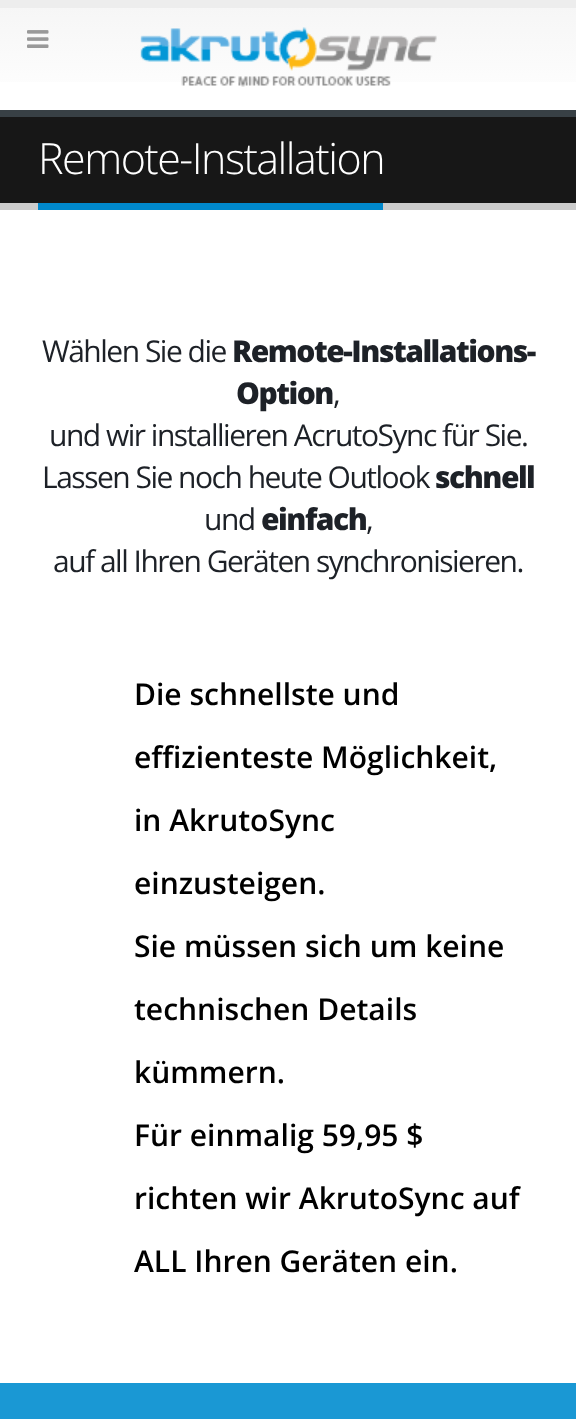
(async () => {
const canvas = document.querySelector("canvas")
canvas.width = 576
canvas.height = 1419
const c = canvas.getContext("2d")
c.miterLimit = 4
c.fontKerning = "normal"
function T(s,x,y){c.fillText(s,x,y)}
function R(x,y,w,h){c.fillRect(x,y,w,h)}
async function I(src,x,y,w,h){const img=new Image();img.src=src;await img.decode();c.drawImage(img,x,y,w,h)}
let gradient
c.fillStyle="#fff"
R(0,0,576,1419)
gradient = c.createLinearGradient(288,7.5,288,110)
gradient.addColorStop(0,"#f6f6f6")
gradient.addColorStop(1,"#fff")
c.fillStyle = gradient
R(0,8,576,74)
c.fillStyle="#ededed"
R(0,0,576,8)
await I("1.png",27,30,22,18)
await I("2.png",140,27,297,60)
c.fillStyle="#171717"
R(0,117,576,86)
c.fillStyle="#384045"
R(0,110,576,7)
c.fillStyle="#ccc"
R(0,203,576,7)
c.fillStyle="#08c"
R(38,203,345,7)
c.letterSpacing="-1.5px"
c.font="300 43px Open Sans"
c.fillStyle="#fff"
T("Remote-Installation",38,174)
c.font="30px Open Sans"
c.fillStyle="#1d2127"
T("Wählen Sie die",42,362)
c.font="800 30px Open Sans"
T("Remote-Installations-",232,362)
T("Option",236,404)
c.font="30px Open Sans"
T(",",333,404)
T("und wir installieren AcrutoSync für Sie.",49,446)
T("Lassen Sie noch heute Outlook",42,488)
c.font="800 30px Open Sans"
T("schnell",435,488)
c.font="30px Open Sans"
T("und",204,530)
c.font="800 30px Open Sans"
T("einfach",261,530)
c.font="30px Open Sans"
T(",",366,530)
T("auf all Ihren Geräten synchronisieren.",53,572)
c.letterSpacing="0px"
c.font="600 30px Open Sans"
c.fillStyle="#000"
T("Die schnellste und",134,705)
T("effizienteste Möglichkeit,",134,768)
T("in AkrutoSync",134,831)
T("einzusteigen.",134,894)
T("Sie müssen sich um keine",134,957)
T("technischen Details",134,1020)
T("kümmern.",134,1083)
T("Für einmalig 59,95 $",134,1146)
T("richten wir AkrutoSync auf",134,1209)
T("ALL Ihren Geräten ein.",134,1272)
c.fillStyle="#1a98d4"
R(0,1383,576,36)
})()
